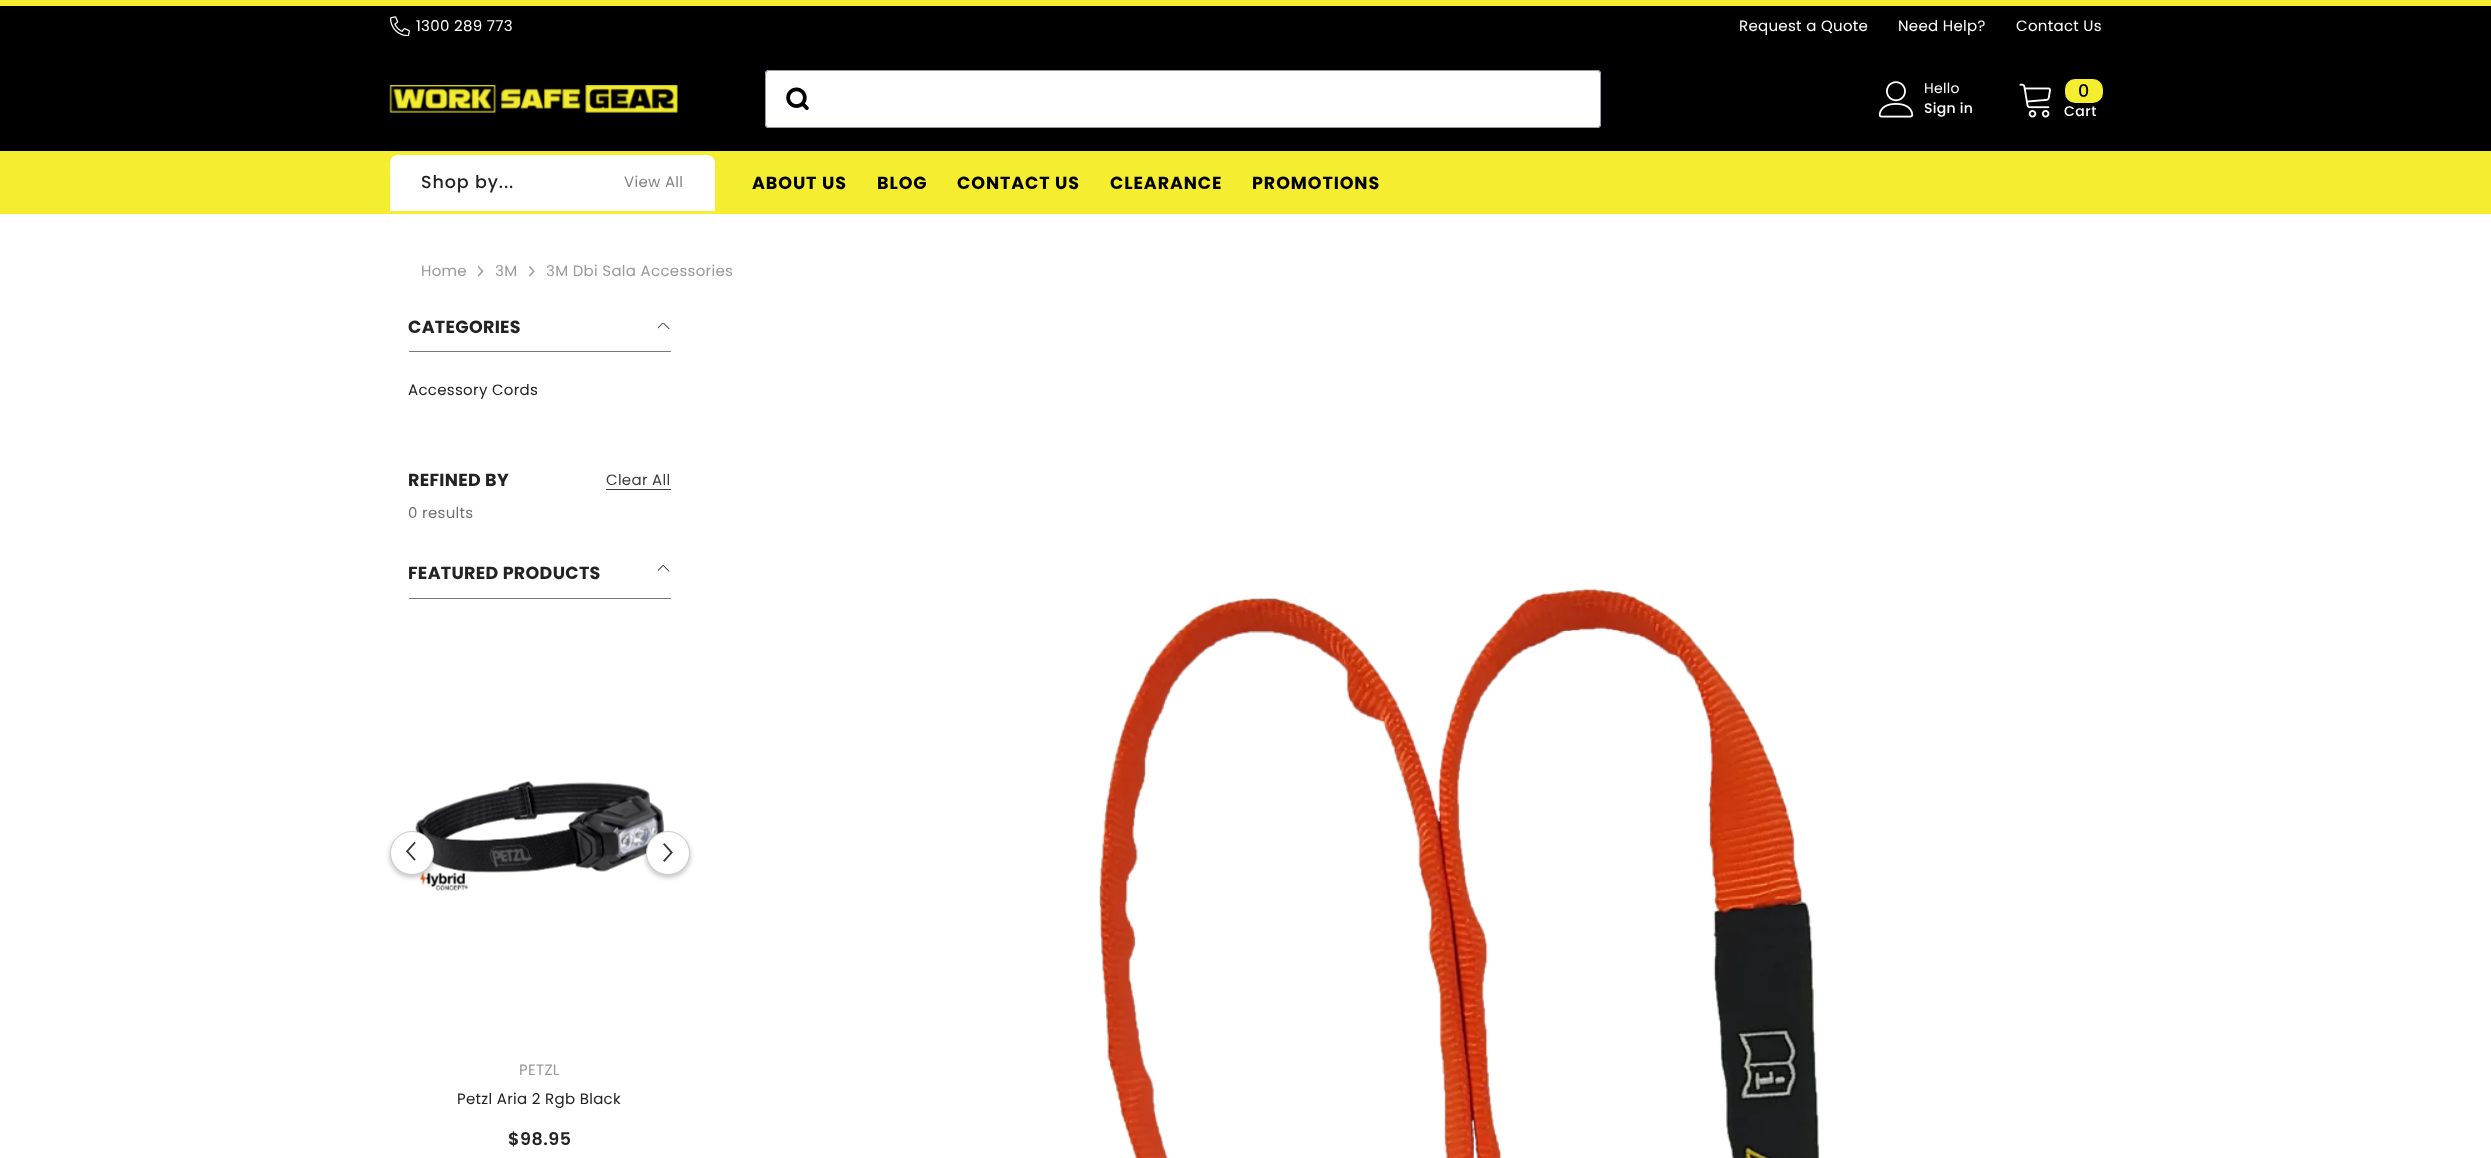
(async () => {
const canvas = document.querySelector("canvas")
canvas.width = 2491
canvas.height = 1158
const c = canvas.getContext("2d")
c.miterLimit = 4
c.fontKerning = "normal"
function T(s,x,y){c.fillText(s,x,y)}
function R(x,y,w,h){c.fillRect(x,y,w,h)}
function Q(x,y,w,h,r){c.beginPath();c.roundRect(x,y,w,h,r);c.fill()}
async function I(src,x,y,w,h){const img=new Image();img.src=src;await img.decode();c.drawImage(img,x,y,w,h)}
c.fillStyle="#fff"
R(0,0,2491,1158)
c.fillStyle="#f5ed30"
R(0,0,2491,6)
c.fillStyle="#000"
R(0,6,2491,145)
await I("1.png",390,16,20,20)
c.letterSpacing="0.3px"
c.font="15px Poppins"
c.fillStyle="#fff"
T("1300 289 773",416,31)
T("Request a Quote",1739,31)
T("Need Help?",1898,31)
T("Contact Us",2016,31)
await I("2.png",389,85,289,28)
Q(765,70,836,58,4)
c.beginPath()
c.roundRect(765.5,70.5,835,57,3.5)
c.strokeStyle="#807ea3cc"
c.stroke()
await I("3.png",786,87,23,23)
await I("4.png",1879,81,35,37)
c.font="14px Poppins"
T("Hello",1924,93)
c.font="500 14px Poppins"
T("Sign in",1924,113)
await I("5.png",2019,83,32,35)
c.fillStyle="#f5ed30"
Q(2065,79,38,24,10)
c.letterSpacing="0px"
c.font="500 17.5px Poppins"
c.fillStyle="#000"
T("0",2078,97)
c.letterSpacing="0.5px"
c.font="500 14px Poppins"
c.fillStyle="#fff"
T("Cart",2064,116)
c.fillStyle="#f5ed30"
R(0,151,2491,63)
c.fillStyle="#fff"
c.beginPath()
c.roundRect(390,155,325,56,[8,8,0,0])
c.fill()
c.letterSpacing="0.9px"
c.font="500 17.5px Poppins"
c.fillStyle="#232323"
T("Shop by...",421,188)
c.letterSpacing="0.3px"
c.font="15px Poppins"
c.fillStyle="#848484"
T("View All",624,187)
c.letterSpacing="0.9px"
c.font="bold 17.5px Poppins"
c.fillStyle="#000"
T("ABOUT US",752,189)
T("BLOG",877,189)
T("CONTACT US",957,189)
T("CLEARANCE",1110,189)
T("PROMOTIONS",1252,189)
c.letterSpacing="0.3px"
c.font="15px Poppins"
c.fillStyle="#999"
T("Home",421,276)
await I("6.png",477,266,7,11)
T("3M",495,276)
await I("7.png",529,266,6,11)
T("3M Dbi Sala Accessories",546,276)
c.fillStyle="#787878"
R(409,351,262,1)
c.font="bold 17.5px Poppins"
c.fillStyle="#232323"
T("CATEGORIES",408,333)
await I("8.png",658,323,12,7)
c.font="15px Poppins"
T("Accessory Cords",408,395)
c.font="bold 17.5px Poppins"
T("REFINED BY",408,486)
c.font="15px Poppins"
c.fillStyle="#3c3c3c"
T("Clear All",606,485)
R(606,489,65,1)
c.fillStyle="#707070"
T("0 results",408,518)
c.fillStyle="#787878"
R(409,598,262,1)
c.font="bold 17.5px Poppins"
c.fillStyle="#232323"
T("FEATURED PRODUCTS",408,579)
await I("9.png",658,565,12,7)
await I("12.png",415,781,250,110)
c.fillStyle="#00000033"
c.filter="blur(2px)"
c.beginPath()
c.roundRect(389,833,46,45,22.5)
c.fill()
c.filter="none"
c.fillStyle="#fff"
c.beginPath()
c.arc(412,853,21.5,0,7)
c.fill()
c.strokeStyle="#ccc"
c.stroke()
await I("10.png",406,841,10,20)
c.fillStyle="#00000033"
c.filter="blur(2px)"
c.beginPath()
c.roundRect(645,833,46,45,22.5)
c.fill()
c.filter="none"
c.fillStyle="#fff"
c.beginPath()
c.arc(668,853,21.5,0,7)
c.fill()
c.stroke()
await I("11.png",663,843,10,19)
c.font="15px Poppins"
c.fillStyle="#999"
T("PETZL",519,1075)
c.fillStyle="#232323"
T("Petzl Aria 2 Rgb Black",457,1104)
c.letterSpacing="0.5px"
c.font="600 17.5px Poppins"
T("$98.95",508,1145)
await I("13.png",1098,588,722,570)
})()
